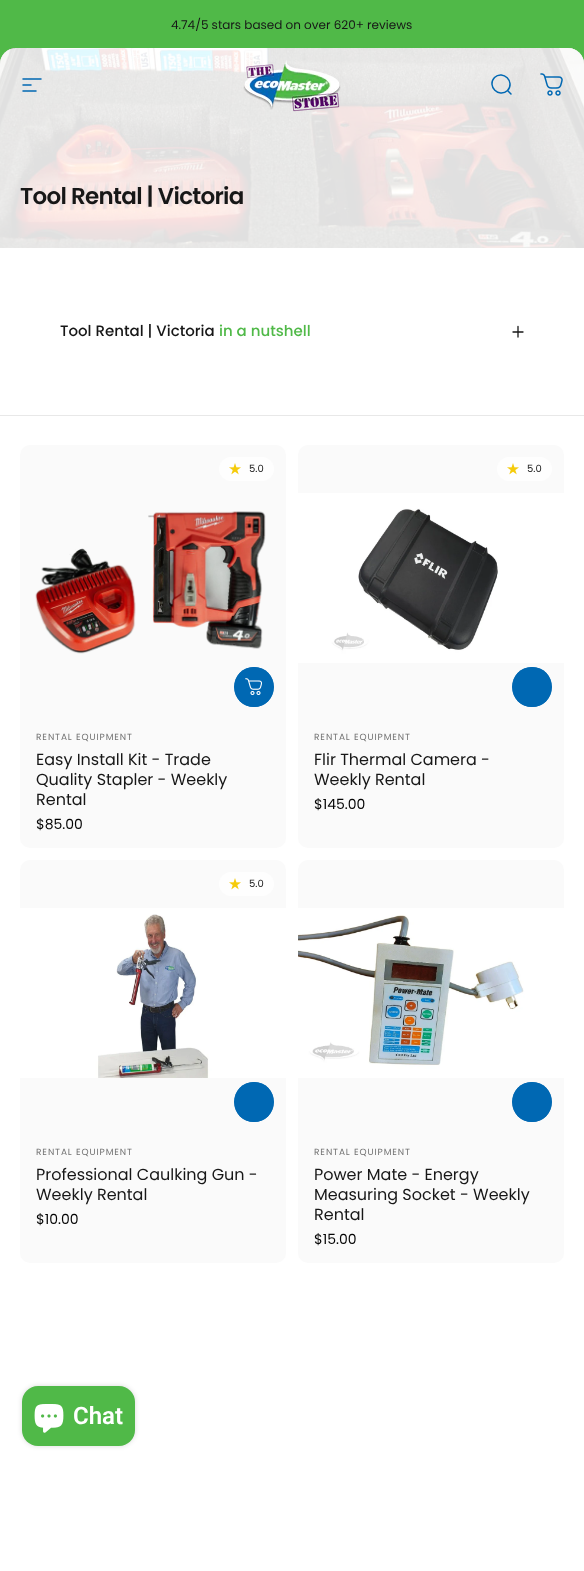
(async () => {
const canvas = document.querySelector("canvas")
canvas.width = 584
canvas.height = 1571
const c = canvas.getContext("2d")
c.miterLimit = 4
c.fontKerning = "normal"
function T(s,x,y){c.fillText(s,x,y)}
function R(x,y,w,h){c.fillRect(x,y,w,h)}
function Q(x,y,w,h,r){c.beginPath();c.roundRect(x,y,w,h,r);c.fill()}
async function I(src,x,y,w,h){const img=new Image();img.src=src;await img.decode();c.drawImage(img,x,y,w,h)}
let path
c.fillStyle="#fff"
R(0,0,584,1571)
c.fillStyle="#50b948"
R(0,0,584,64)
c.font="12px Poppins"
c.fillStyle="#171717"
T("4.74/5 stars based on over 620+ reviews",171,29)
c.fillStyle="#fafafa"
c.beginPath()
c.roundRect(0,48,584,216,[16,16,0,0])
c.fill()
await I("3.png",0,48,584,200)
c.fillStyle="#ffffffe0"
c.beginPath()
c.roundRect(0,48,584,216,[16,16,0,0])
c.fill()
path = new Path2D("M23 79h18m-18 6h8m-8 6h13")
c.strokeStyle="#0068b3"
c.lineWidth=1.5
c.lineCap="round"
c.stroke(path)
await I("1.png",243,60,98,52)
path = new Path2D("M511 94l-3.5-3.5m0 0c8-8.5-4.5-21-13-13c-8 8.5 4.5 21 13 13z")
c.stroke(path)
await I("2.png",540,73,23,23)
c.letterSpacing="-0.7px"
c.font="600 23px Poppins"
c.fillStyle="#171717"
T("Tool Rental | Victoria",20,204)
c.letterSpacing="0px"
c.font="500 15px Poppins"
T("Tool Rental | Victoria",60,336)
c.fillStyle="#50b948"
T("in a nutshell",219,336)
path = new Path2D("M518 337v-10.5m5 5.5h-10")
c.strokeStyle="#171717"
c.lineWidth=1.3
c.lineJoin="round"
c.stroke(path)
c.fillStyle="#e8e8e8"
R(0,415,584,1)
c.fillStyle="#fafafa"
Q(20,445,266,403,10)
c.fillStyle="#fefefe"
Q(219,457,55,24,12)
await I("4.png",229,463,12,12)
c.font="10px Poppins"
c.fillStyle="#171717"
T("5.0",249,472)
await I("5.png",35,511,231,143)
c.fillStyle="#0068b3"
c.beginPath()
c.arc(254,687,20,0,7)
c.fill()
path = new Path2D("M254 667c26 0 26 40 0 40c-26 0-26-40 0-40z")
c.fill(path)
await I("6.png",245,678,17,17)
c.letterSpacing="0.9px"
c.font="9px Poppins"
c.fillStyle="#727272"
T("RENTAL EQUIPMENT",36,740)
c.letterSpacing="0px"
c.font="16px Poppins"
c.fillStyle="#171717"
T("Easy Install Kit - Trade",36,765)
T("Quality Stapler - Weekly",36,785)
T("Rental",36,805)
c.font="14px Poppins"
c.fillStyle="#040404"
T("$85.00",36,829)
c.fillStyle="#fafafa"
Q(298,445,266,403,10)
c.fillStyle="#fefefe"
Q(497,457,55,24,12)
await I("4.png",507,463,12,12)
c.font="10px Poppins"
c.fillStyle="#171717"
T("5.0",527,472)
await I("7.png",298,493,266,170)
c.fillStyle="#0068b3"
c.beginPath()
c.arc(532,687,20,0,7)
c.fill()
path = new Path2D("M532 667c26 0 26 40 0 40c-26 0-26-40 0-40z")
c.fill(path)
c.letterSpacing="0.9px"
c.font="9px Poppins"
c.fillStyle="#727272"
T("RENTAL EQUIPMENT",314,740)
c.letterSpacing="0px"
c.font="16px Poppins"
c.fillStyle="#171717"
T("Flir Thermal Camera -",314,765)
T("Weekly Rental",314,785)
c.font="14px Poppins"
c.fillStyle="#040404"
T("$145.00",314,809)
c.fillStyle="#fafafa"
Q(20,860,266,403,10)
c.fillStyle="#fefefe"
Q(219,872,55,24,12)
await I("4.png",229,878,12,12)
c.font="10px Poppins"
c.fillStyle="#171717"
T("5.0",249,887)
await I("8.png",20,908,266,170)
c.fillStyle="#0068b3"
c.beginPath()
c.arc(254,1102,20,0,7)
c.fill()
path = new Path2D("M254 1082c26 0 26 40 0 40c-26 0-26-40 0-40z")
c.fill(path)
c.letterSpacing="0.9px"
c.font="9px Poppins"
c.fillStyle="#727272"
T("RENTAL EQUIPMENT",36,1155)
c.letterSpacing="0px"
c.font="16px Poppins"
c.fillStyle="#171717"
T("Professional Caulking Gun -",36,1180)
T("Weekly Rental",36,1200)
c.font="14px Poppins"
c.fillStyle="#040404"
T("$10.00",36,1224)
c.fillStyle="#fafafa"
Q(298,860,266,403,10)
await I("9.png",298,908,266,170)
c.fillStyle="#0068b3"
c.beginPath()
c.arc(532,1102,20,0,7)
c.fill()
path = new Path2D("M532 1082c-26 0-26 40 0 40c26 0 26-40 0-40z")
c.fill(path)
c.letterSpacing="0.9px"
c.font="9px Poppins"
c.fillStyle="#727272"
T("RENTAL EQUIPMENT",314,1155)
c.letterSpacing="0px"
c.font="16px Poppins"
c.fillStyle="#171717"
T("Power Mate - Energy",314,1180)
T("Measuring Socket - Weekly",314,1200)
T("Rental",314,1220)
c.font="14px Poppins"
c.fillStyle="#040404"
T("$15.00",314,1244)
c.fillStyle="#00000026"
c.filter="blur(2.5px)"
c.beginPath()
c.roundRect(22,1386,113,60,16)
c.fill()
c.filter="none"
c.fillStyle="#50b948"
Q(22,1386,113,60,16)
await I("10.png",34,1404,30,29)
c.font="600 24px Roboto"
c.fillStyle="#fff"
T("Chat",73,1424)
})()
